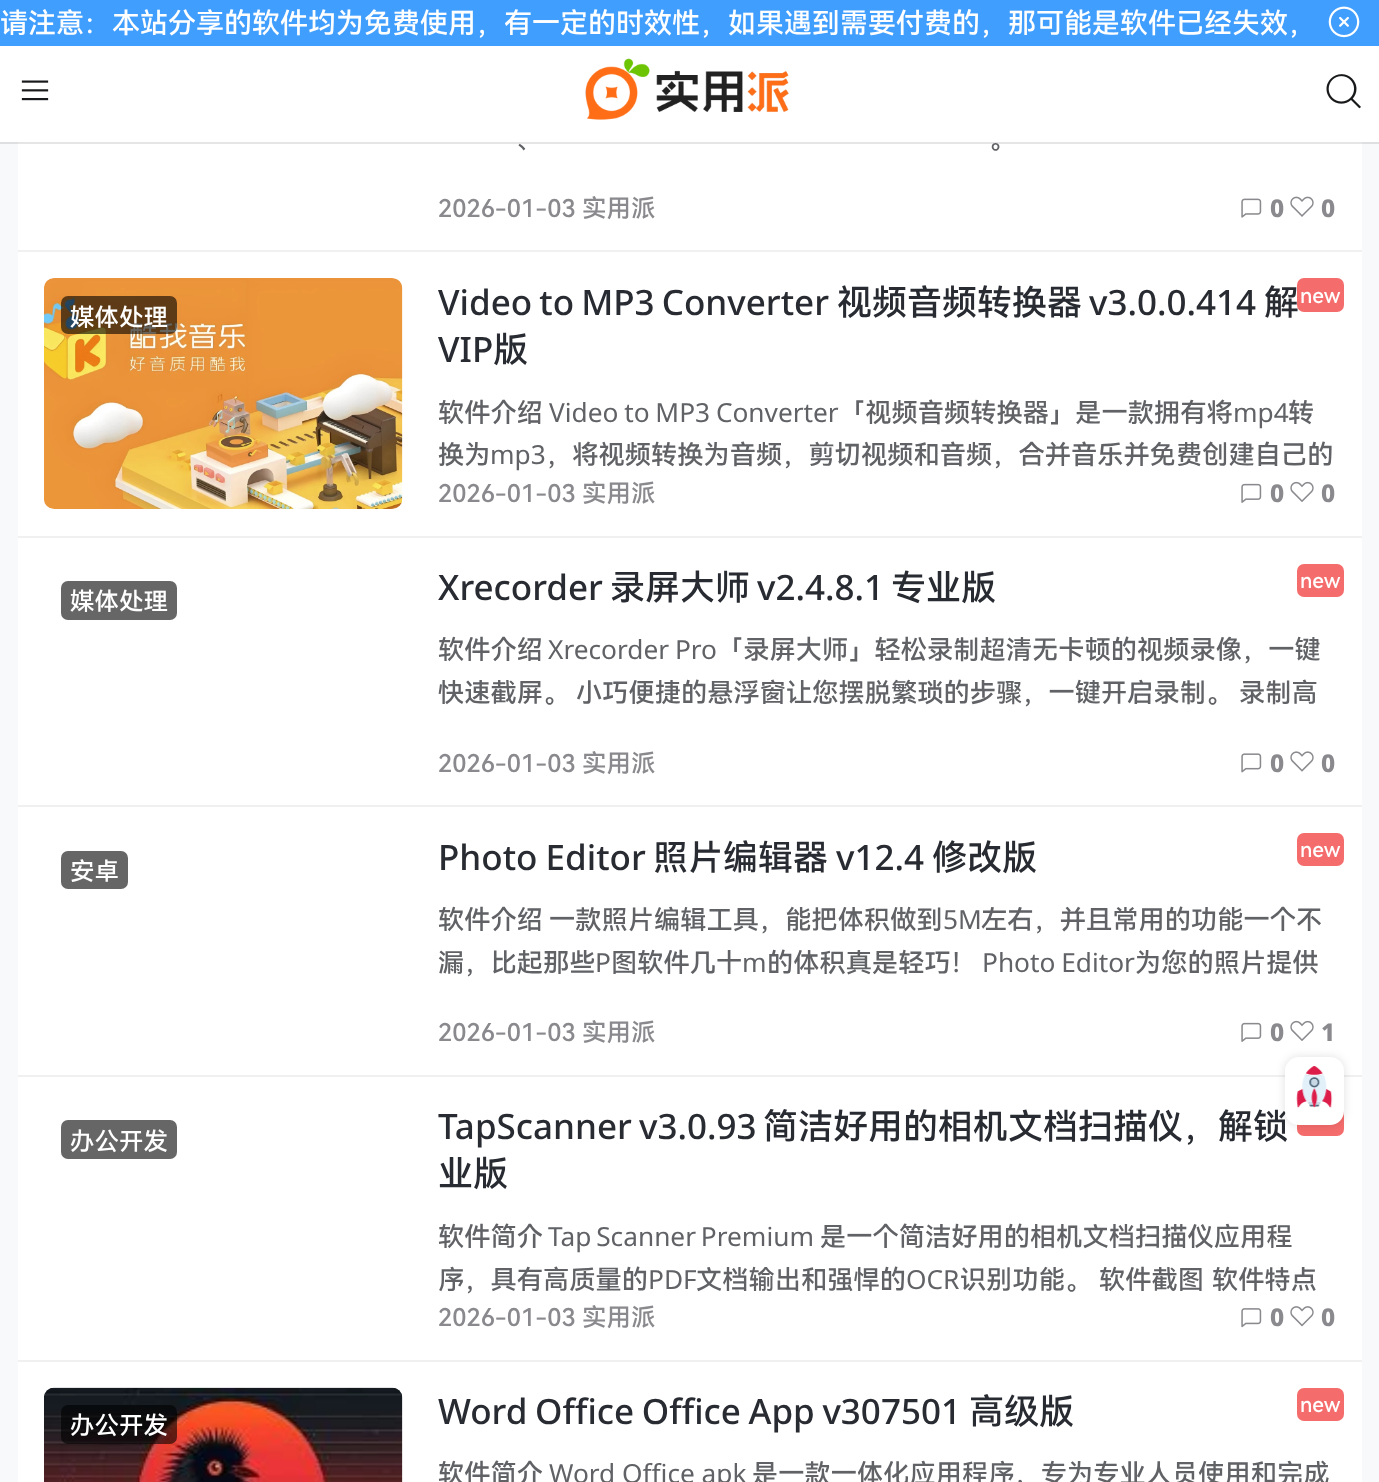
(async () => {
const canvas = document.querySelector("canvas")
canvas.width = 1379
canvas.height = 1482
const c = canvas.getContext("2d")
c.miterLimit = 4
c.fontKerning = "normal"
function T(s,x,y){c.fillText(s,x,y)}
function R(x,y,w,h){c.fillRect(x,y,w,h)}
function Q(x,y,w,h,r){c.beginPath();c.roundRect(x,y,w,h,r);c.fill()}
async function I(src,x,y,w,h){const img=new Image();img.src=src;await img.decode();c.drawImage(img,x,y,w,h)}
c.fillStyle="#f7f9fa"
R(0,0,1379,1482)
c.fillStyle="#fff"
R(18,142,1344,1340)
c.fillStyle="#0000001a"
c.filter="blur(0.5px)"
c.beginPath()
c.rect(0,46,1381,98)
c.fill()
c.filter="none"
c.fillStyle="#409eff"
R(0,0,1379,46)
c.font="500 28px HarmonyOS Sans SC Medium"
c.fillStyle="#fff"
T("请注意：本站分享的软件均为免费使用，有一定的时效性，如果遇到需要付费的，那可能是软件已经失效，",0,33)
await I("1.png",1328,6,32,32)
R(0,46,1379,96)
await I("2.png",21,80,28,21)
await I("3.png",585,58,204,62)
await I("4.png",1326,74,35,35)
c.fillStyle="#f0f0f0"
R(18,1075,1344,2)
c.fillStyle="#f56c6c"
Q(1297,1103,47,33,7)
c.fillStyle="#0000001f"
c.filter="blur(5px)"
c.beginPath()
c.roundRect(1285,1057,59,68,14)
c.fill()
c.filter="none"
c.font="500 35px HarmonyOS Sans SC Medium"
c.fillStyle="#282b31"
T("简洁好用的相机文档扫描仪，解锁",763,1139)
c.fillStyle="#fff"
Q(1285,1057,59,68,14)
await I("5.png",1296,1066,37,42)
c.fillStyle="#f0f0f0"
R(18,250,1344,2)
c.font="500 26.25px HarmonyOS Sans SC Medium"
c.fillStyle="#606266"
T("、",516,148)
T("。",989,148)
c.font="500 24.5px HarmonyOS Sans SC Medium"
c.fillStyle="#8a8a8e"
T("2026-01-03",438,217)
T("实用派",582,217)
await I("6.png",1241,198,21,20)
c.font="800 24.5px Noto Sans"
T("0",1270,217)
await I("7.png",1290,196,24,21)
T("0",1321,217)
c.fillStyle="#f0f0f0"
R(18,536,1344,2)
await I("8.png",44,278,359,231)
c.fillStyle="#00000099"
Q(61,296,116,38,7)
c.font="500 24.5px HarmonyOS Sans SC Medium"
c.fillStyle="#fff"
T("媒体处理",70,326)
c.wordSpacing="-2px"
c.font="500 35px Noto Sans"
c.fillStyle="#282b31"
T("Video to MP3 Converter",438,315)
c.wordSpacing="0px"
c.font="500 35px HarmonyOS Sans SC Medium"
T("视频音频转换器",837,315)
c.font="500 35px Noto Sans"
T("v3.0.0.414",1089,315)
c.font="500 35px HarmonyOS Sans SC Medium"
T("解",1264,315)
c.font="500 35px Noto Sans"
T("VIP",438,362)
c.font="500 35px HarmonyOS Sans SC Medium"
T("版",493,362)
c.font="500 26.25px HarmonyOS Sans SC Medium"
c.fillStyle="#606266"
T("软件介绍",438,422)
c.wordSpacing="-1px"
c.font="26.25px Noto Sans"
T("Video to MP3 Converter",549,422)
c.wordSpacing="0px"
c.font="500 26.25px HarmonyOS Sans SC Medium"
T("「视频音频转换器」是一款拥有将",839,422)
c.font="26.25px Noto Sans"
T("mp4",1233,422)
c.font="500 26.25px HarmonyOS Sans SC Medium"
T("转",1288,422)
T("换为",438,464)
c.font="26.25px Noto Sans"
T("mp3",490,464)
c.font="500 26.25px HarmonyOS Sans SC Medium"
T("，将视频转换为音频，剪切视频和音频，合并音乐并免费创建自己的",546,464)
c.fillStyle="#f56c6c"
Q(1297,278,47,34,7)
c.font="500 21px HarmonyOS Sans SC Medium"
c.fillStyle="#fff"
T("new",1300,303)
c.font="500 24.5px HarmonyOS Sans SC Medium"
c.fillStyle="#8a8a8e"
T("2026-01-03",438,502)
T("实用派",582,502)
await I("9.png",1241,483,21,20)
c.font="800 24.5px Noto Sans"
T("0",1270,502)
await I("10.png",1290,481,24,21)
T("0",1321,502)
c.fillStyle="#f0f0f0"
R(18,805,1344,2)
c.fillStyle="#666"
Q(61,581,116,39,7)
c.font="500 24.5px HarmonyOS Sans SC Medium"
c.fillStyle="#fff"
T("媒体处理",70,610)
c.font="500 35px Noto Sans"
c.fillStyle="#282b31"
T("Xrecorder",438,600)
c.font="500 35px HarmonyOS Sans SC Medium"
T("录屏大师",610,600)
c.font="500 35px Noto Sans"
T("v2.4.8.1",757,600)
c.font="500 35px HarmonyOS Sans SC Medium"
T("专业版",891,600)
c.font="500 26.25px HarmonyOS Sans SC Medium"
c.fillStyle="#606266"
T("软件介绍",438,659)
c.wordSpacing="-1px"
c.font="26.25px Noto Sans"
T("Xrecorder Pro",548,659)
c.wordSpacing="0px"
c.font="500 26.25px HarmonyOS Sans SC Medium"
T("「录屏大师」轻松录制超清无卡顿的视频录像，一键",717,659)
T("快速截屏。",438,702)
T("小巧便捷的悬浮窗让您摆脱繁琐的步骤，一键开启录制。",576,702)
T("录制高",1239,702)
c.fillStyle="#f56c6c"
Q(1297,564,47,33,7)
c.font="500 21px HarmonyOS Sans SC Medium"
c.fillStyle="#fff"
T("new",1300,588)
c.font="500 24.5px HarmonyOS Sans SC Medium"
c.fillStyle="#8a8a8e"
T("2026-01-03",438,772)
T("实用派",582,772)
await I("11.png",1241,753,21,20)
c.font="800 24.5px Noto Sans"
T("0",1270,772)
await I("12.png",1290,751,24,21)
T("0",1321,772)
c.fillStyle="#666"
Q(61,851,67,38,7)
c.font="500 24.5px HarmonyOS Sans SC Medium"
c.fillStyle="#fff"
T("安卓",70,880)
c.wordSpacing="-1px"
c.font="500 35px Noto Sans"
c.fillStyle="#282b31"
T("Photo Editor",438,870)
c.wordSpacing="0px"
c.font="500 35px HarmonyOS Sans SC Medium"
T("照片编辑器",653,870)
c.font="500 35px Noto Sans"
T("v12.4",836,870)
c.font="500 35px HarmonyOS Sans SC Medium"
T("修改版",932,870)
c.font="500 26.25px HarmonyOS Sans SC Medium"
c.fillStyle="#606266"
T("软件介绍",438,929)
T("一款照片编辑工具，能把体积做到",549,929)
c.font="26.25px Noto Sans"
T("5M",943,929)
c.font="500 26.25px HarmonyOS Sans SC Medium"
T("左右，并且常用的功能一个不",981,929)
T("漏，比起那些",438,972)
c.font="26.25px Noto Sans"
T("P",595,972)
c.font="500 26.25px HarmonyOS Sans SC Medium"
T("图软件几十",611,972)
c.font="26.25px Noto Sans"
T("m",742,972)
c.font="500 26.25px HarmonyOS Sans SC Medium"
T("的体积真是轻巧！",767,972)
c.wordSpacing="-1px"
c.font="26.25px Noto Sans"
T("Photo Editor",982,972)
c.wordSpacing="0px"
c.font="500 26.25px HarmonyOS Sans SC Medium"
T("为您的照片提供",1135,972)
c.fillStyle="#f56c6c"
Q(1297,833,47,33,7)
c.font="500 21px HarmonyOS Sans SC Medium"
c.fillStyle="#fff"
T("new",1300,857)
c.font="500 24.5px HarmonyOS Sans SC Medium"
c.fillStyle="#8a8a8e"
T("2026-01-03",438,1041)
T("实用派",582,1041)
await I("9.png",1241,1022,21,20)
c.font="800 24.5px Noto Sans"
T("0",1270,1041)
await I("10.png",1290,1020,24,21)
T("1",1321,1041)
c.fillStyle="#f0f0f0"
R(18,1360,1344,2)
c.fillStyle="#666"
Q(61,1120,116,39,7)
c.font="500 24.5px HarmonyOS Sans SC Medium"
c.fillStyle="#fff"
T("办公开发",70,1150)
c.wordSpacing="-2px"
c.font="500 35px Noto Sans"
c.fillStyle="#282b31"
T("TapScanner v3.0.93",438,1139)
c.wordSpacing="0px"
c.font="500 35px HarmonyOS Sans SC Medium"
T("业版",438,1186)
c.font="500 26.25px HarmonyOS Sans SC Medium"
c.fillStyle="#606266"
T("软件简介",438,1246)
c.wordSpacing="-2px"
c.font="26.25px Noto Sans"
T("Tap Scanner Premium",548,1246)
c.wordSpacing="0px"
c.font="500 26.25px HarmonyOS Sans SC Medium"
T("是一个简洁好用的相机文档扫描仪应用程",820,1246)
T("序，具有高质量的",438,1289)
c.font="26.25px Noto Sans"
T("PDF",648,1289)
c.font="500 26.25px HarmonyOS Sans SC Medium"
T("文档输出和强悍的",696,1289)
c.font="26.25px Noto Sans"
T("OCR",906,1289)
c.font="500 26.25px HarmonyOS Sans SC Medium"
T("识别功能。",960,1289)
T("软件截图",1099,1289)
T("软件特点",1212,1289)
c.font="500 24.5px HarmonyOS Sans SC Medium"
c.fillStyle="#8a8a8e"
T("2026-01-03",438,1326)
T("实用派",582,1326)
await I("13.png",1241,1308,21,20)
c.font="800 24.5px Noto Sans"
T("0",1270,1326)
await I("14.png",1290,1306,24,21)
T("0",1321,1326)
await I("15.png",44,1387,359,95)
c.fillStyle="#00000099"
Q(61,1405,116,39,7)
c.font="500 24.5px HarmonyOS Sans SC Medium"
c.fillStyle="#fff"
T("办公开发",70,1434)
c.wordSpacing="-1.5px"
c.font="500 35px Noto Sans"
c.fillStyle="#282b31"
T("Word Office Office App v307501",438,1424)
c.wordSpacing="0px"
c.font="500 35px HarmonyOS Sans SC Medium"
T("高级版",969,1424)
c.font="500 26.25px HarmonyOS Sans SC Medium"
c.fillStyle="#606266"
T("软件简介",438,1483)
c.font="26.25px Noto Sans"
T("Word Office apk",549,1483)
c.font="500 26.25px HarmonyOS Sans SC Medium"
T("是一款一体化应用程序，专为专业人员使用和完成",752,1483)
c.fillStyle="#f56c6c"
Q(1297,1388,47,33,7)
c.font="500 21px HarmonyOS Sans SC Medium"
c.fillStyle="#fff"
T("new",1300,1412)
})()
